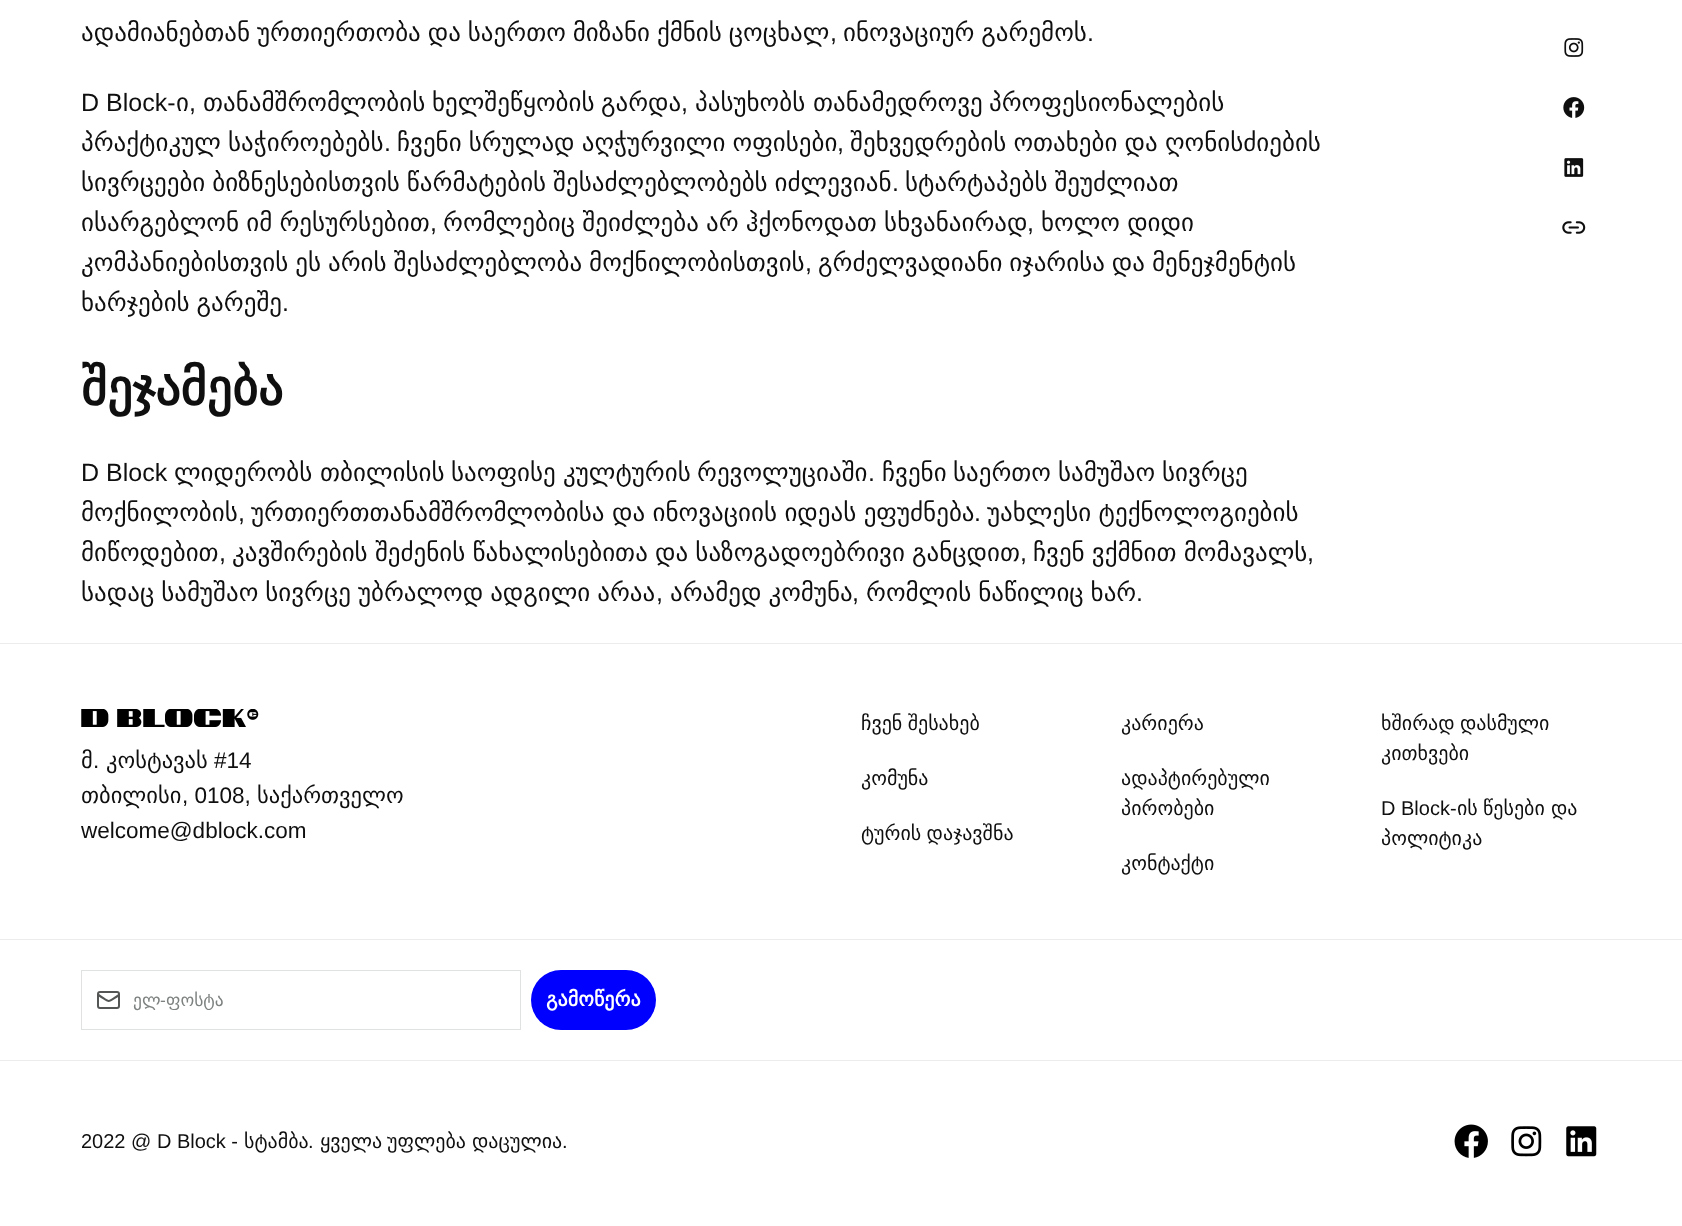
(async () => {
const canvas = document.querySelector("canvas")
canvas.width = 1682
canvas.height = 1226
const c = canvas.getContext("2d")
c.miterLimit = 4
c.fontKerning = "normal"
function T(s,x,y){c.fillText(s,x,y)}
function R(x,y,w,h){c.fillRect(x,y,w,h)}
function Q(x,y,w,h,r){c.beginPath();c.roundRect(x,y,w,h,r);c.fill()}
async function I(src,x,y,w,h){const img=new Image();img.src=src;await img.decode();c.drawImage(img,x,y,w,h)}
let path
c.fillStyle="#fff"
R(0,0,1682,1226)
c.wordSpacing="-1px"
c.font="25px DejaVu Sans"
c.fillStyle="#0f0f0f"
T("ადამიანებთან ურთიერთობა და საერთო მიზანი ქმნის ცოცხალ",81,41)
c.wordSpacing="0px"
c.font="25px Liberation Sans"
T(",",830,41)
c.wordSpacing="-1px"
c.font="25px DejaVu Sans"
T("ინოვაციურ გარემოს",843,41)
c.wordSpacing="0px"
c.font="25px Liberation Sans"
T(".",1087,41)
T("D Block-",81,111)
c.font="25px DejaVu Sans"
T("ი",176,111)
c.font="25px Liberation Sans"
T(",",189,111)
c.font="25px DejaVu Sans"
T("თანამშრომლობის",203,111)
T("ხელშეწყობის",432,111)
T("გარდა",601,111)
c.font="25px Liberation Sans"
T(",",681,111)
c.font="25px DejaVu Sans"
T("პასუხობს",695,111)
T("თანამედროვე",813,111)
T("პროფესიონალების",989,111)
c.wordSpacing="-0.75px"
T("პრაქტიკულ საჭიროებებს",81,151)
c.wordSpacing="0px"
c.font="25px Liberation Sans"
T(".",384,151)
c.wordSpacing="-0.75px"
c.font="25px DejaVu Sans"
T("ჩვენი სრულად აღჭურვილი ოფისები",397,151)
c.wordSpacing="0px"
c.font="25px Liberation Sans"
T(",",837,151)
c.wordSpacing="-0.75px"
c.font="25px DejaVu Sans"
T("შეხვედრების ოთახები და ღონისძიების",850,151)
c.wordSpacing="-1px"
T("სივრცეები ბიზნესებისთვის წარმატების შესაძლებლობებს იძლევიან",81,191)
c.wordSpacing="0px"
c.font="25px Liberation Sans"
T(".",892,191)
c.wordSpacing="-1px"
c.font="25px DejaVu Sans"
T("სტარტაპებს შეუძლიათ",905,191)
c.wordSpacing="-0.75px"
T("ისარგებლონ იმ რესურსებით",81,231)
c.wordSpacing="0px"
c.font="25px Liberation Sans"
T(",",430,231)
c.wordSpacing="-0.75px"
c.font="25px DejaVu Sans"
T("რომლებიც შეიძლება არ ჰქონოდათ სხვანაირად",443,231)
c.wordSpacing="0px"
c.font="25px Liberation Sans"
T(",",1027,231)
c.wordSpacing="-0.75px"
c.font="25px DejaVu Sans"
T("ხოლო დიდი",1041,231)
c.wordSpacing="-1px"
T("კომპანიებისთვის ეს არის შესაძლებლობა მოქნილობისთვის",81,271)
c.wordSpacing="0px"
c.font="25px Liberation Sans"
T(",",805,271)
c.wordSpacing="-1px"
c.font="25px DejaVu Sans"
T("გრძელვადიანი იჯარისა და მენეჯმენტის",818,271)
T("ხარჯების გარეშე",81,311)
c.wordSpacing="0px"
c.font="25px Liberation Sans"
T(".",282,311)
c.font="bold 50px DejaVu Sans"
T("შეჯამება",81,405)
c.font="25px Liberation Sans"
T("D Block",81,481)
c.font="25px DejaVu Sans"
T("ლიდერობს",174,481)
T("თბილისის",320,481)
T("საოფისე",451,481)
T("კულტურის",563,481)
T("რევოლუციაში",697,481)
c.font="25px Liberation Sans"
T(".",868,481)
c.font="25px DejaVu Sans"
T("ჩვენი",882,481)
T("საერთო",953,481)
T("სამუშაო",1058,481)
T("სივრცე",1162,481)
T("მოქნილობის",81,521)
c.font="25px Liberation Sans"
T(",",238,521)
c.wordSpacing="-0.5px"
c.font="25px DejaVu Sans"
T("ურთიერთთანამშრომლობისა და ინოვაციის იდეას ეფუძნება",251,521)
c.wordSpacing="0px"
c.font="25px Liberation Sans"
T(".",974,521)
c.wordSpacing="-0.5px"
c.font="25px DejaVu Sans"
T("უახლესი ტექნოლოგიების",987,521)
c.wordSpacing="0px"
T("მიწოდებით",81,561)
c.font="25px Liberation Sans"
T(",",219,561)
c.wordSpacing="-0.75px"
c.font="25px DejaVu Sans"
T("კავშირების შეძენის წახალისებითა და საზოგადოებრივი განცდით",232,561)
c.wordSpacing="0px"
c.font="25px Liberation Sans"
T(",",1020,561)
c.wordSpacing="-0.75px"
c.font="25px DejaVu Sans"
T("ჩვენ ვქმნით მომავალს",1033,561)
c.wordSpacing="0px"
c.font="25px Liberation Sans"
T(",",1307,561)
c.wordSpacing="-1px"
c.font="25px DejaVu Sans"
T("სადაც სამუშაო სივრცე უბრალოდ ადგილი არაა",81,601)
c.wordSpacing="0px"
c.font="25px Liberation Sans"
T(",",656,601)
c.wordSpacing="-1px"
c.font="25px DejaVu Sans"
T("არამედ კომუნა",670,601)
c.wordSpacing="0px"
c.font="25px Liberation Sans"
T(",",852,601)
c.wordSpacing="-1px"
c.font="25px DejaVu Sans"
T("რომლის ნაწილიც ხარ",866,601)
c.wordSpacing="0px"
c.font="25px Liberation Sans"
T(".",1136,601)
await I("1.png",1564,38,20,19)
await I("2.png",1563,97,22,21)
await I("3.png",1564,158,20,19)
await I("4.png",1562,221,24,13)
c.fillStyle="#ebeded"
R(0,643,1682,1)
await I("5.png",81,709,178,18)
c.font="22.5px DejaVu Sans"
c.fillStyle="#0f0f0f"
T("მ",81,768)
c.font="22.5px Liberation Sans"
T(".",93,768)
c.font="22.5px DejaVu Sans"
T("კოსტავას",106,768)
c.font="22.5px Liberation Sans"
T("#14",214,768)
c.font="22.5px DejaVu Sans"
T("თბილისი",81,803)
c.font="22.5px Liberation Sans"
T(", 0108,",182,803)
c.font="22.5px DejaVu Sans"
T("საქართველო",257,803)
c.font="22.5px Liberation Sans"
T("welcome@dblock.com",81,838)
c.wordSpacing="-1px"
c.font="20px DejaVu Sans"
T("ჩვენ შესახებ",861,730)
c.wordSpacing="0px"
T("კომუნა",861,785)
c.wordSpacing="-1px"
T("ტურის დაჯავშნა",861,840)
c.wordSpacing="0px"
T("კარიერა",1121,730)
T("ადაპტირებული",1121,785)
T("პირობები",1121,815)
T("კონტაქტი",1121,870)
c.wordSpacing="-1px"
T("ხშირად დასმული",1381,730)
c.wordSpacing="0px"
T("კითხვები",1381,760)
c.font="20px Liberation Sans"
T("D Block-",1381,815)
c.font="20px DejaVu Sans"
T("ის",1457,815)
T("წესები",1483,815)
T("და",1551,815)
T("პოლიტიკა",1381,845)
c.fillStyle="#ebeded"
R(0,939,1682,1)
c.strokeStyle="#e0e2e2"
c.strokeRect(81.5,970.5,439,59)
path = new Path2D("M119 995c-12.5 8-8 8-20.5 0")
c.strokeStyle="#545656"
c.lineWidth=2.1
c.lineCap="round"
c.lineJoin="round"
c.stroke(path)
c.beginPath()
c.roundRect(98,992,21,16,2)
c.lineWidth=2
c.lineJoin="miter"
c.stroke()
c.font="17.5px DejaVu Sans"
c.fillStyle="#7d8280"
T("ელ",133,1006)
c.font="17.5px Liberation Sans"
T("-",160,1006)
c.save()
c.beginPath()
c.rect(133,990,372,20)
c.clip()
c.font="17.5px DejaVu Sans"
T("ფოსტა",166,1006)
c.restore()
c.fillStyle="#00f"
Q(531,970,125,60,30)
c.font="bold 20px DejaVu Sans"
c.fillStyle="#fff"
T("გამოწერა",546,1006)
c.fillStyle="#ebeded"
R(0,1060,1682,1)
c.font="20px Liberation Sans"
c.fillStyle="#0f0f0f"
T("2022 @ D Block -",81,1148)
c.font="20px DejaVu Sans"
T("სტამბა",244,1148)
c.font="20px Liberation Sans"
T(".",308,1148)
c.font="20px DejaVu Sans"
T("ყველა",320,1148)
T("უფლება",387,1148)
T("დაცულია",472,1148)
c.font="20px Liberation Sans"
T(".",562,1148)
await I("6.png",1454,1124,34,34)
await I("7.png",1511,1126,31,31)
await I("8.png",1566,1126,31,31)
})()
